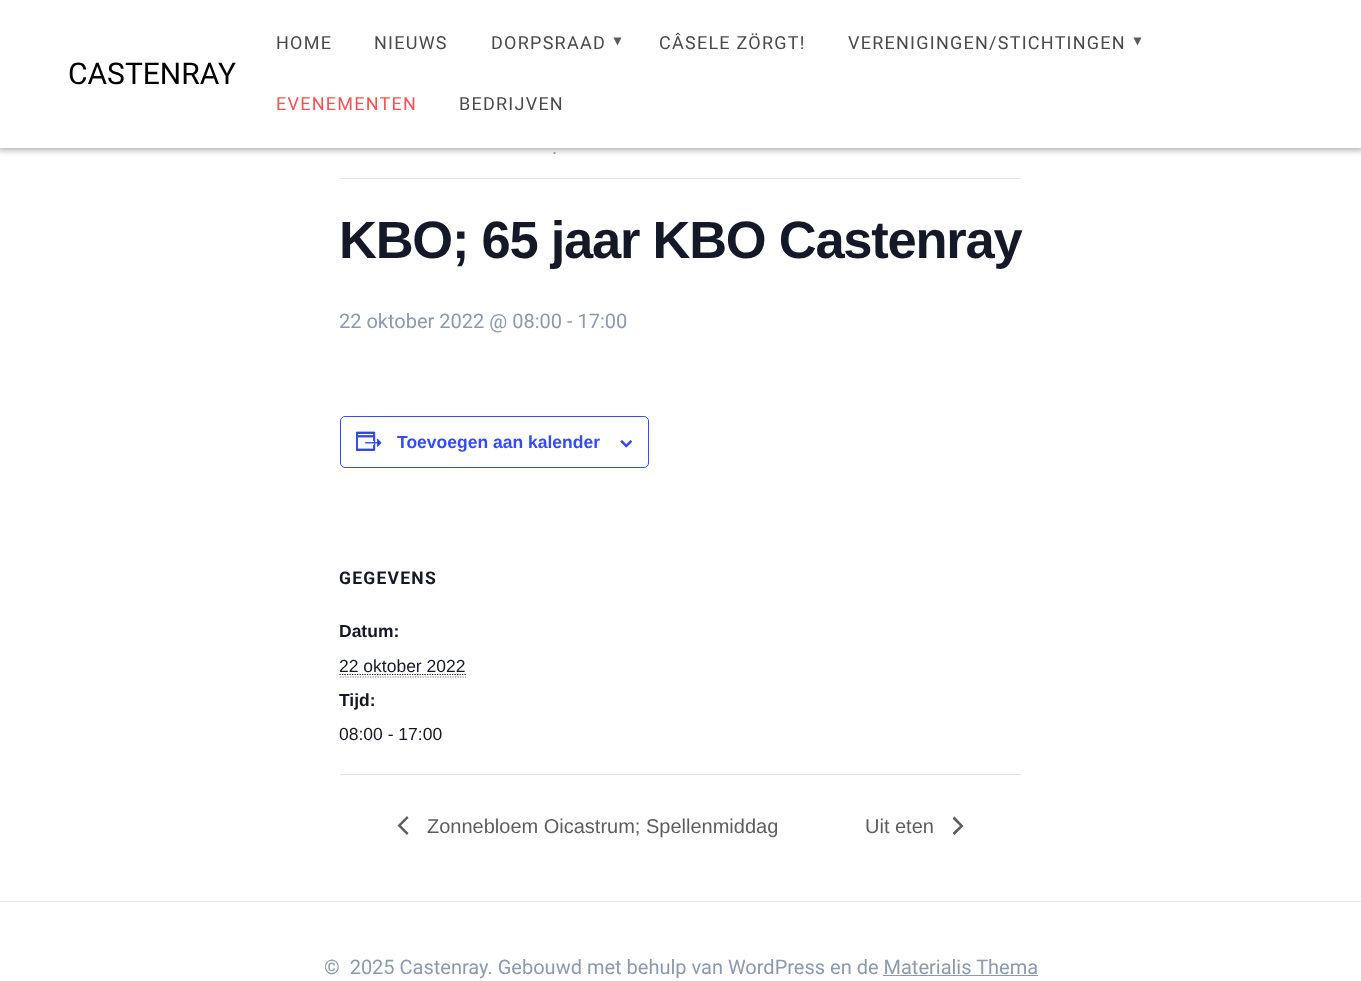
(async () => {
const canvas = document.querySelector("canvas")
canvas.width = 1361
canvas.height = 981
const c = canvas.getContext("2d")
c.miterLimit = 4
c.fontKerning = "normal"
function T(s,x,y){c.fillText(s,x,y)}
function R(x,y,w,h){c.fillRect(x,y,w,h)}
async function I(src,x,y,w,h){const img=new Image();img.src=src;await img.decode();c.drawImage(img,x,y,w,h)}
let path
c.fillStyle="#fff"
R(0,0,1361,981)
c.fillStyle="#00000054"
c.filter="blur(3px)"
c.beginPath()
c.rect(-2,-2,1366,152)
c.fill()
c.filter="none"
c.fillStyle="#fff"
R(0,0,1361,148)
c.font="30px Roboto"
c.fillStyle="#000"
T("CASTENRAY",68,84)
c.letterSpacing="1.25px"
c.font="18px Roboto"
c.fillStyle="#4a4a4a"
T("HOME",276,49)
T("NIEUWS",374,49)
T("DORPSRAAD",491,49)
c.fillStyle="#5c5c5c"
path = new Path2D("M613.5 37.5l4 8l4-8z")
c.fill(path)
c.fillStyle="#4a4a4a"
T("CÂSELE ZÖRGT!",659,49)
T("VERENIGINGEN/STICHTINGEN",848,49)
c.fillStyle="#5c5c5c"
path = new Path2D("M1133.5 37.5l4 8l4-8z")
c.fill(path)
c.fillStyle="#fa5252"
T("EVENEMENTEN",276,110)
c.fillStyle="#4a4a4a"
T("BEDRIJVEN",459,110)
c.fillStyle="#e4e4e4"
R(340,178,681,1)
c.letterSpacing="0px"
c.font="20px Roboto"
c.fillStyle="#8d99ae"
T(".",552,154)
c.letterSpacing="-1.25px"
c.font="bold 52.5px Liberation Sans"
c.fillStyle="#141827"
T("KBO; 65 jaar KBO Castenray",339,258)
c.letterSpacing="0px"
c.font="20px Roboto"
c.fillStyle="#8d99ae"
T("22 oktober 2022 @ 08:00 - 17:00",339,328)
c.beginPath()
c.roundRect(340.5,416.5,308,51,4.5)
c.strokeStyle="#334aff"
c.stroke()
await I("1.png",356,431,26,20)
c.font="bold 17.5px Liberation Sans"
c.fillStyle="#334aff"
T("Toevoegen aan kalender",397,448)
await I("2.png",620,440,13,8)
c.letterSpacing="1.25px"
c.font="bold 17.5px Roboto"
c.fillStyle="#141827"
T("GEGEVENS",339,584)
c.letterSpacing="0px"
c.font="bold 17.5px Liberation Sans"
T("Datum:",339,637)
c.font="17.5px Liberation Sans"
T("22 oktober 2022",339,672)
path = new Path2D("M340 677h126")
c.strokeStyle="#808080"
c.lineWidth=1.2
c.setLineDash([1.25,1.25])
c.stroke(path)
path = new Path2D("M339.5 674.5h126.5")
c.strokeStyle="#141827"
c.stroke(path)
c.font="bold 17.5px Liberation Sans"
T("Tijd:",339,706)
c.font="17.5px Liberation Sans"
T("08:00 - 17:00",339,740)
c.fillStyle="#e4e4e4"
R(340,774,681,1)
c.fillStyle="#5d5d5d"
path = new Path2D("M408.5 833l-1.5 2l-9.5-9.5l9.5-9.5l1.5 2l-7.5 7.5z")
c.fill(path)
c.font="20px Liberation Sans"
T("Zonnebloem Oicastrum; Spellenmiddag",427,833)
T("Uit eten",865,833)
c.save()
c.beginPath()
c.rect(953,816,11,19)
c.clip()
path = new Path2D("M952.5 818.5l2-2l9 9.5l-9 9l-2-2l7.5-7z")
c.fill(path)
c.restore()
c.fillStyle="#e8e8e8"
R(0,901,1361,1)
c.font="20px Roboto"
c.fillStyle="#8d99ae"
T("©  2025 Castenray. Gebouwd met behulp van WordPress en de Materialis Thema",324,974)
R(883,975,155,1)
})()
